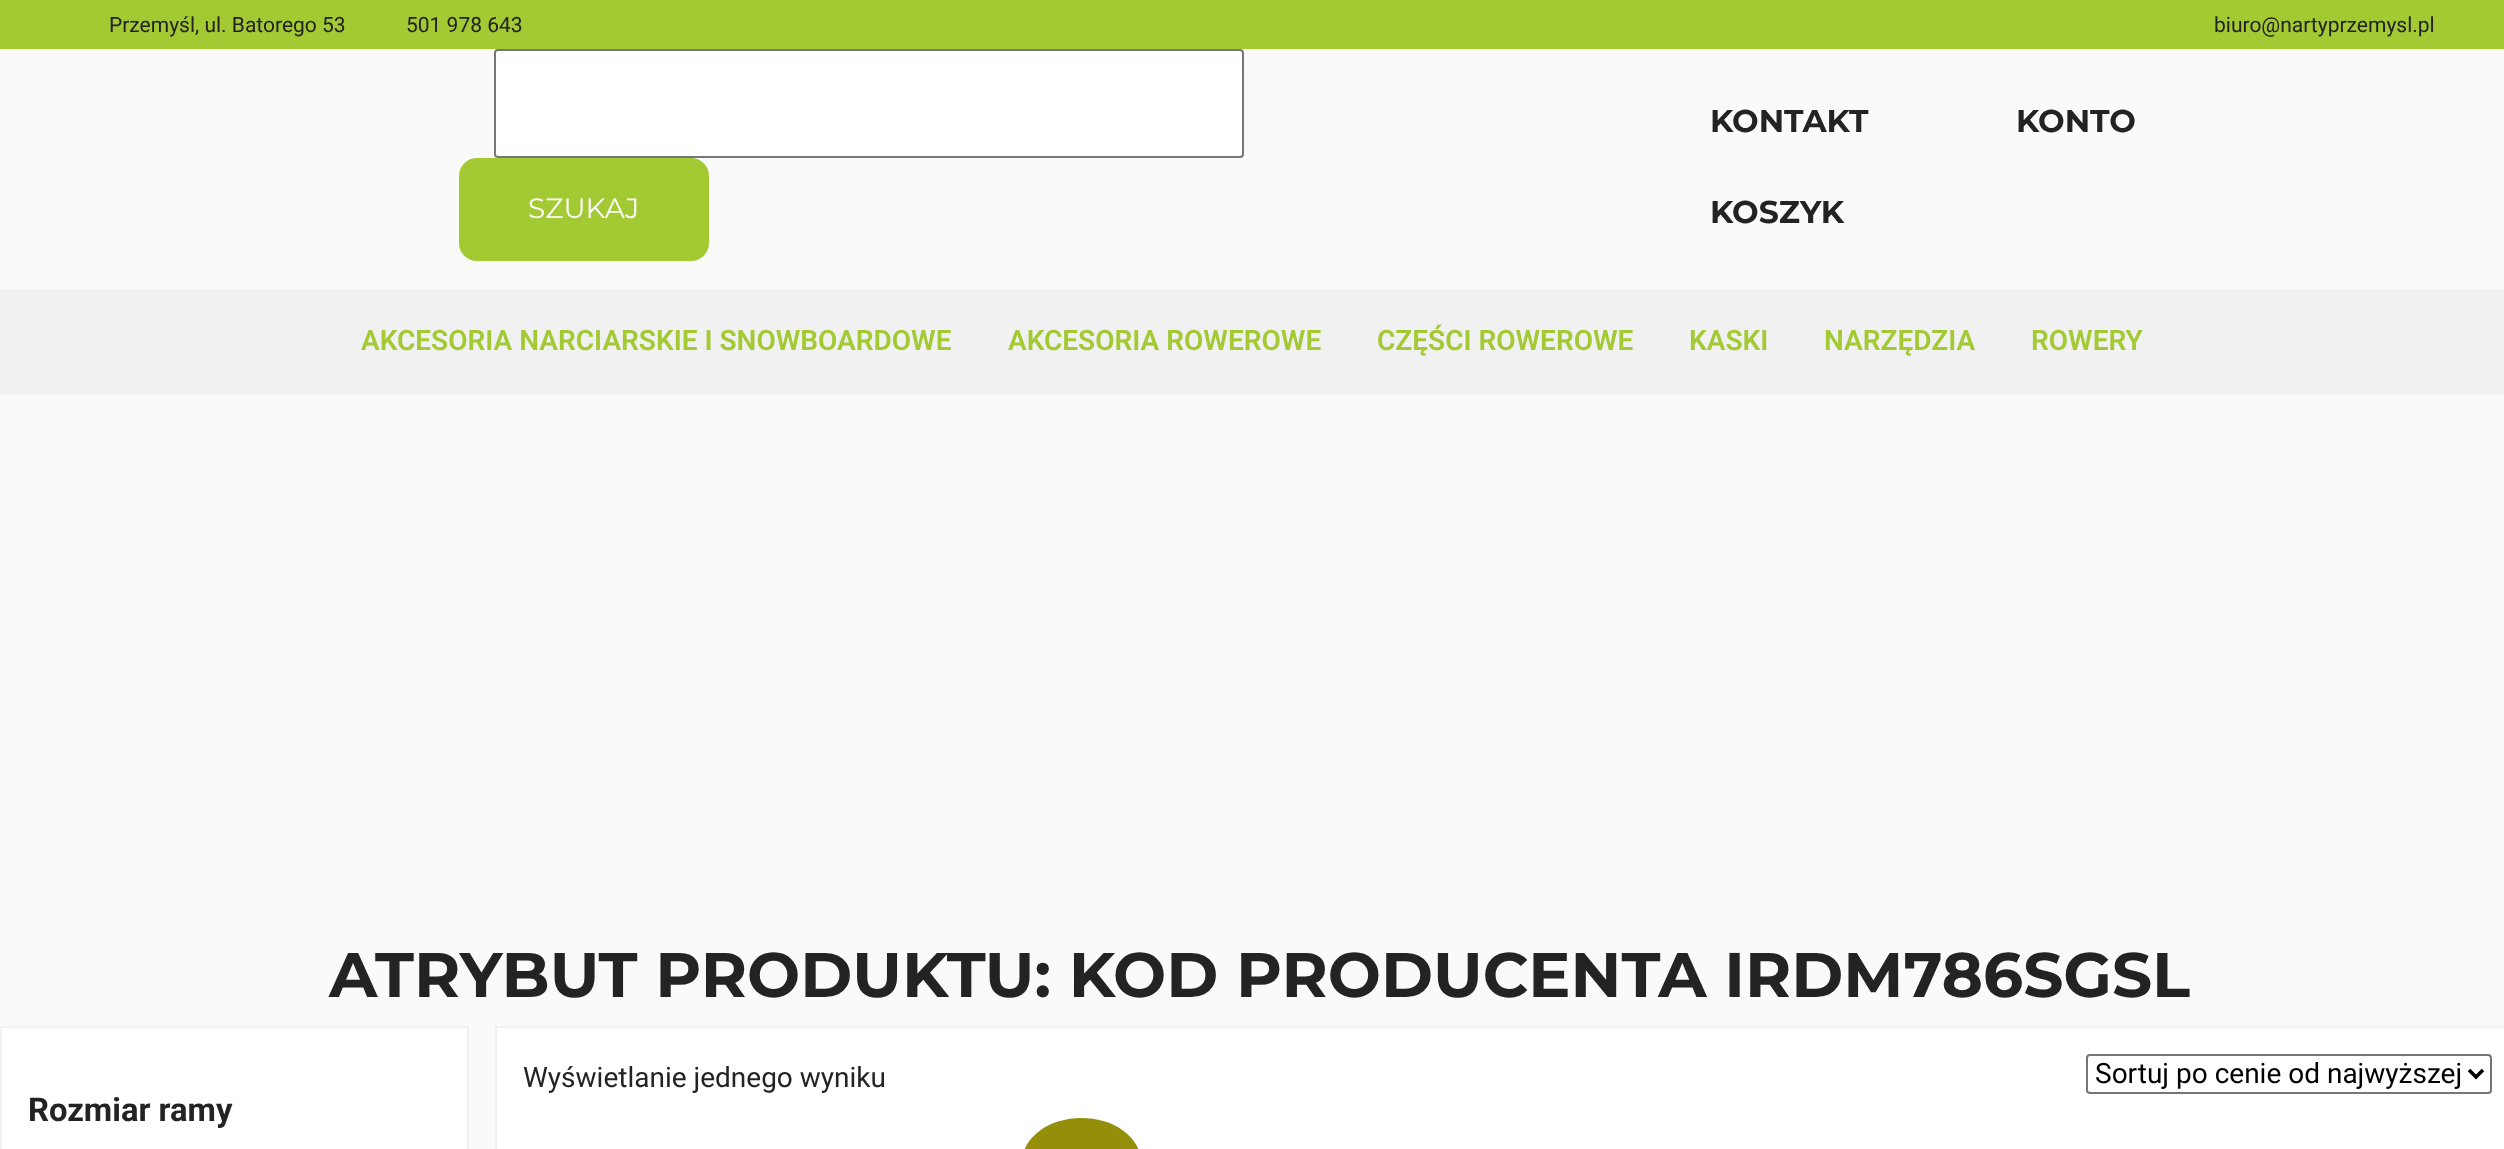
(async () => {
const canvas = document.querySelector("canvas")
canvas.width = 2504
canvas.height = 1149
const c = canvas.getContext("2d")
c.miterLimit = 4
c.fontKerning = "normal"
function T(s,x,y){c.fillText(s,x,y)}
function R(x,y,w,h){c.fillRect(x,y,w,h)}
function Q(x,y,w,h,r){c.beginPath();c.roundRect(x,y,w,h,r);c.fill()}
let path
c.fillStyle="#fafaf8"
R(0,0,2504,1149)
c.fillStyle="#a3c933"
R(0,0,2504,49)
c.font="21px Roboto"
c.fillStyle="#232323"
T("Przemyśl, ul. Batorego 53",109,32)
T("501 978 643",406,32)
T("biuro@nartyprzemysl.pl",2214,32)
c.fillStyle="#fff"
c.beginPath()
c.roundRect(495,50,748,107,3)
c.fill()
c.strokeStyle="#767676"
c.lineWidth=2
c.stroke()
c.fillStyle="#a3c933"
Q(459,158,250,103,18)
c.font="28px Montserrat"
c.fillStyle="#fff"
T("SZUKAJ",528,218)
c.font="bold 31.5px Montserrat"
c.fillStyle="#232323"
T("KONTAKT",1710,132)
T("KONTO",2016,132)
T("KOSZYK",1710,223)
c.fillStyle="#f1f1f1"
R(0,289,2504,105)
c.font="600 28px Roboto"
c.fillStyle="#a3c933"
T("AKCESORIA NARCIARSKIE I SNOWBOARDOWE",361,350)
T("AKCESORIA ROWEROWE",1008,350)
T("CZĘŚCI ROWEROWE",1377,350)
T("KASKI",1689,350)
T("NARZĘDZIA",1824,350)
T("ROWERY",2031,350)
c.font="bold 63px Montserrat"
c.fillStyle="#232323"
T("ATRYBUT PRODUKTU: KOD PRODUCENTA IRDM786SGSL",329,997)
c.fillStyle="#fff"
c.beginPath()
c.rect(496,1027,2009,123)
c.fill()
c.strokeStyle="#f1f1f1"
c.stroke()
c.font="28px Roboto"
c.fillStyle="#232323"
T("Wyświetlanie jednego wyniku",523,1087)
c.beginPath()
c.roundRect(2087,1055,404,38,3)
c.strokeStyle="#767676"
c.stroke()
path = new Path2D("M2469 1070l7 7l7-7")
c.strokeStyle="#000"
c.lineWidth=3.5
c.stroke(path)
c.fillStyle="#000"
T("Sortuj po cenie od najwyższej",2095,1083)
c.fillStyle="#958e09"
c.beginPath()
c.ellipse(1081.5,1162,59.5,44,0,0,7)
c.fill()
c.fillStyle="#fff"
c.beginPath()
c.rect(1,1027,467,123)
c.fill()
c.strokeStyle="#f1f1f1"
c.lineWidth=2
c.stroke()
c.font="bold 32.75px Roboto"
c.fillStyle="#232323"
T("Rozmiar ramy",28,1121)
})()
